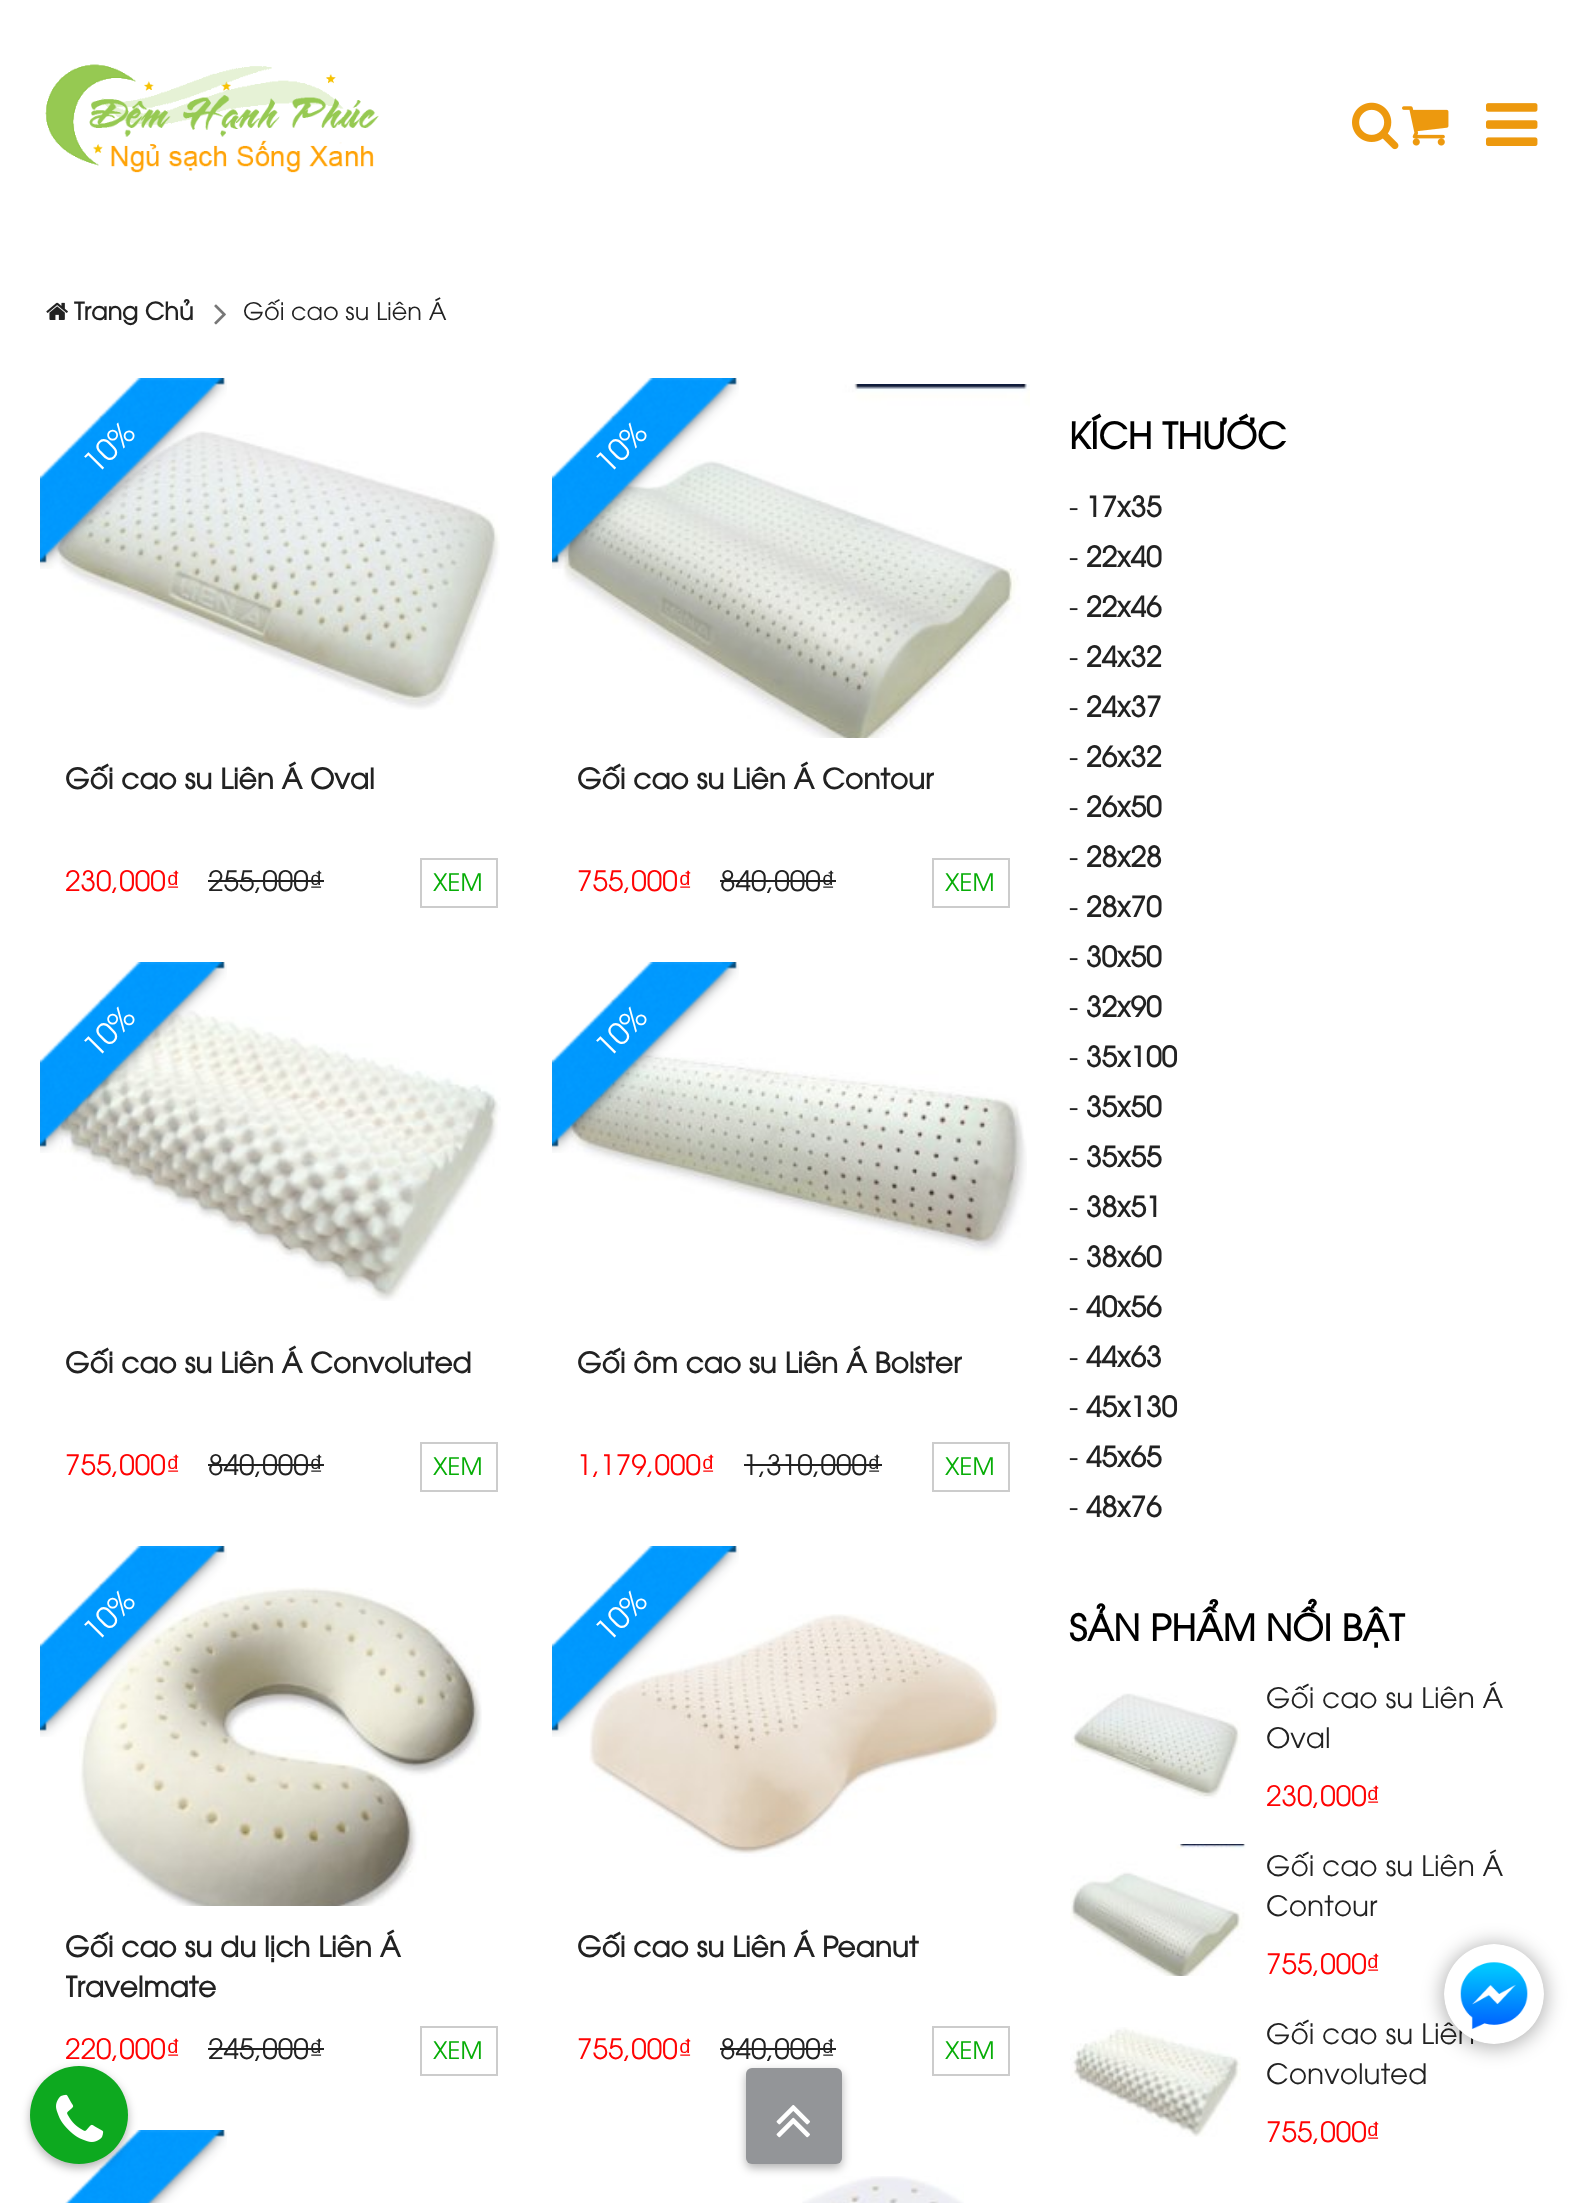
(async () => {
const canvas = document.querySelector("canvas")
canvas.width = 1586
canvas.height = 2203
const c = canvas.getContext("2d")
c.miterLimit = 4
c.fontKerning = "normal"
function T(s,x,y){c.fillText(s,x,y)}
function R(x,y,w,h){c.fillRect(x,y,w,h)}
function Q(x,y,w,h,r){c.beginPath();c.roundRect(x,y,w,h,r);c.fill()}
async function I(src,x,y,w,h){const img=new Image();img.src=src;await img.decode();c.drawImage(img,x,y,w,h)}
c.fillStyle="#fff"
R(0,0,1586,2203)
await I("1.png",45,64,334,109)
await I("2.png",1352,102,47,48)
await I("3.png",1402,106,47,40)
await I("4.png",1486,103,52,43)
await I("5.png",46,302,22,18)
c.font="bold 24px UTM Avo"
c.fillStyle="#222"
T("Trang Chủ",74,320)
await I("6.png",214,304,12,21)
c.font="24px UTM Avo"
T("Gối cao su Liên Á",243,320)
await I("8.png",46,431,454,279)
await I("7.png",40,378,187,191)
c.font="30px UTM Avo"
c.fillStyle="#fff"
c.save()
c.translate(97,475)
c.rotate(-45 * Math.PI / 180)
c.fillText("10%",0,0)
c.restore()
c.font="bold 28px UTM Avo"
c.fillStyle="#222"
T("Gối cao su Liên Á Oval",65,789)
c.font="28px UTM Avo"
c.fillStyle="#ff0303"
T("230,000",65,891)
c.font="28px Liberation Sans"
T("₫",166,891)
c.font="28px UTM Avo"
c.fillStyle="#222"
T("255,000",208,891)
R(208,880,116,2)
c.font="28px Liberation Sans"
T("₫",309,891)
c.strokeStyle="#ccc"
c.lineWidth=2
c.strokeRect(421,859,76,48)
c.font="24px UTM Avo"
c.fillStyle="#07ad07"
T("XEM",433,891)
await I("9.png",558,384,472,354)
await I("10.png",552,378,187,191)
c.font="30px UTM Avo"
c.fillStyle="#fff"
c.save()
c.translate(609,475)
c.rotate(-45 * Math.PI / 180)
c.fillText("10%",0,0)
c.restore()
c.font="bold 28px UTM Avo"
c.fillStyle="#222"
T("Gối cao su Liên Á Contour",577,789)
c.font="28px UTM Avo"
c.fillStyle="#ff0303"
T("755,000",577,891)
c.font="28px Liberation Sans"
T("₫",678,891)
c.font="28px UTM Avo"
c.fillStyle="#222"
T("840,000",720,891)
R(720,880,116,2)
c.font="28px Liberation Sans"
T("₫",821,891)
c.strokeRect(933,859,76,48)
c.font="24px UTM Avo"
c.fillStyle="#07ad07"
T("XEM",945,891)
await I("12.png",55,1010,446,291)
await I("11.png",40,962,187,191)
c.font="30px UTM Avo"
c.fillStyle="#fff"
c.save()
c.translate(97,1059)
c.rotate(-45 * Math.PI / 180)
c.fillText("10%",0,0)
c.restore()
c.font="bold 28px UTM Avo"
c.fillStyle="#222"
T("Gối cao su Liên Á Convoluted",65,1373)
c.font="28px UTM Avo"
c.fillStyle="#ff0303"
T("755,000",65,1475)
c.font="28px Liberation Sans"
T("₫",166,1475)
c.font="28px UTM Avo"
c.fillStyle="#222"
T("840,000",208,1475)
R(208,1464,116,2)
c.font="28px Liberation Sans"
T("₫",309,1475)
c.strokeRect(421,1443,76,48)
c.font="24px UTM Avo"
c.fillStyle="#07ad07"
T("XEM",433,1475)
await I("14.png",559,1048,468,208)
await I("13.png",552,962,187,191)
c.font="30px UTM Avo"
c.fillStyle="#fff"
c.save()
c.translate(609,1059)
c.rotate(-45 * Math.PI / 180)
c.fillText("10%",0,0)
c.restore()
c.font="bold 28px UTM Avo"
c.fillStyle="#222"
T("Gối ôm cao su Liên Á Bolster",577,1373)
c.font="28px UTM Avo"
c.fillStyle="#ff0303"
T("1,179,000",577,1475)
c.font="28px Liberation Sans"
T("₫",701,1475)
c.font="28px UTM Avo"
c.fillStyle="#222"
T("1,310,000",743,1475)
R(744,1464,138,2)
c.font="28px Liberation Sans"
T("₫",867,1475)
c.strokeRect(933,1443,76,48)
c.font="24px UTM Avo"
c.fillStyle="#07ad07"
T("XEM",945,1475)
await I("15.png",79,1587,403,319)
await I("16.png",40,1546,187,191)
c.font="30px UTM Avo"
c.fillStyle="#fff"
c.save()
c.translate(97,1643)
c.rotate(-45 * Math.PI / 180)
c.fillText("10%",0,0)
c.restore()
c.font="bold 28px UTM Avo"
c.fillStyle="#222"
T("Gối cao su du lịch Liên Á",65,1957)
c.save()
c.beginPath()
c.rect(66,1926,452,80)
c.clip()
T("Travelmate",65,1997)
c.restore()
c.font="28px UTM Avo"
c.fillStyle="#ff0303"
T("220,000",65,2059)
c.font="28px Liberation Sans"
T("₫",166,2059)
c.font="28px UTM Avo"
c.fillStyle="#222"
T("245,000",208,2059)
R(208,2048,116,2)
c.font="28px Liberation Sans"
T("₫",309,2059)
c.strokeRect(421,2027,76,48)
c.font="24px UTM Avo"
c.fillStyle="#07ad07"
T("XEM",433,2059)
await I("18.png",589,1614,413,243)
await I("17.png",552,1546,187,191)
c.font="30px UTM Avo"
c.fillStyle="#fff"
c.save()
c.translate(609,1643)
c.rotate(-45 * Math.PI / 180)
c.fillText("10%",0,0)
c.restore()
c.font="bold 28px UTM Avo"
c.fillStyle="#222"
T("Gối cao su Liên Á Peanut",577,1957)
c.font="28px UTM Avo"
c.fillStyle="#ff0303"
T("755,000",577,2059)
c.font="28px Liberation Sans"
T("₫",678,2059)
c.font="28px UTM Avo"
c.fillStyle="#222"
T("840,000",720,2059)
R(720,2048,116,2)
c.font="28px Liberation Sans"
T("₫",821,2059)
c.strokeRect(933,2027,76,48)
c.font="24px UTM Avo"
c.fillStyle="#07ad07"
T("XEM",945,2059)
await I("19.png",65,2130,162,73)
await I("20.png",802,2176,162,27)
c.font="bold 36px UTM Avo"
c.fillStyle="#000"
T("KÍCH THƯỚC",1069,449)
c.font="28px UTM Avo"
c.fillStyle="#222"
T("-",1069,517)
c.font="bold 28px UTM Avo"
T("17x35",1086,517)
c.font="28px UTM Avo"
T("-",1069,567)
c.font="bold 28px UTM Avo"
T("22x40",1086,567)
c.font="28px UTM Avo"
T("-",1069,617)
c.font="bold 28px UTM Avo"
T("22x46",1086,617)
c.font="28px UTM Avo"
T("-",1069,667)
c.font="bold 28px UTM Avo"
T("24x32",1086,667)
c.font="28px UTM Avo"
T("-",1069,717)
c.font="bold 28px UTM Avo"
T("24x37",1086,717)
c.font="28px UTM Avo"
T("-",1069,767)
c.font="bold 28px UTM Avo"
T("26x32",1086,767)
c.font="28px UTM Avo"
T("-",1069,817)
c.font="bold 28px UTM Avo"
T("26x50",1086,817)
c.font="28px UTM Avo"
T("-",1069,867)
c.font="bold 28px UTM Avo"
T("28x28",1086,867)
c.font="28px UTM Avo"
T("-",1069,917)
c.font="bold 28px UTM Avo"
T("28x70",1086,917)
c.font="28px UTM Avo"
T("-",1069,967)
c.font="bold 28px UTM Avo"
T("30x50",1086,967)
c.font="28px UTM Avo"
T("-",1069,1017)
c.font="bold 28px UTM Avo"
T("32x90",1086,1017)
c.font="28px UTM Avo"
T("-",1069,1067)
c.font="bold 28px UTM Avo"
T("35x100",1086,1067)
c.font="28px UTM Avo"
T("-",1069,1117)
c.font="bold 28px UTM Avo"
T("35x50",1086,1117)
c.font="28px UTM Avo"
T("-",1069,1167)
c.font="bold 28px UTM Avo"
T("35x55",1086,1167)
c.font="28px UTM Avo"
T("-",1069,1217)
c.font="bold 28px UTM Avo"
T("38x51",1086,1217)
c.font="28px UTM Avo"
T("-",1069,1267)
c.font="bold 28px UTM Avo"
T("38x60",1086,1267)
c.font="28px UTM Avo"
T("-",1069,1317)
c.font="bold 28px UTM Avo"
T("40x56",1086,1317)
c.font="28px UTM Avo"
T("-",1069,1367)
c.font="bold 28px UTM Avo"
T("44x63",1086,1367)
c.font="28px UTM Avo"
T("-",1069,1417)
c.font="bold 28px UTM Avo"
T("45x130",1086,1417)
c.font="28px UTM Avo"
T("-",1069,1467)
c.font="bold 28px UTM Avo"
T("45x65",1086,1467)
c.font="28px UTM Avo"
T("-",1069,1517)
c.font="bold 28px UTM Avo"
T("48x76",1086,1517)
c.font="bold 36px UTM Avo"
c.fillStyle="#000"
T("SẢN PHẨM NỔI BẬT",1069,1641)
await I("21.png",1071,1693,170,106)
c.font="28px UTM Avo"
c.fillStyle="#222"
T("Gối cao su Liên Á",1266,1708)
T("Oval",1266,1748)
c.fillStyle="#ff0303"
T("230,000",1266,1806)
c.font="28px Liberation Sans"
T("₫",1366,1806)
await I("22.png",1070,1844,176,132)
c.font="28px UTM Avo"
c.fillStyle="#222"
T("Gối cao su Liên Á",1266,1876)
T("Contour",1266,1916)
c.fillStyle="#ff0303"
T("755,000",1266,1974)
c.font="28px Liberation Sans"
T("₫",1366,1974)
await I("23.png",1070,2027,171,110)
c.font="28px UTM Avo"
c.fillStyle="#222"
T("Gối cao su Liên",1266,2044)
T("Convoluted",1266,2084)
c.fillStyle="#ff0303"
T("755,000",1266,2142)
c.font="28px Liberation Sans"
T("₫",1366,2142)
c.fillStyle="#0000004d"
c.filter="blur(10px)"
c.beginPath()
c.roundRect(1442,1944,104,104,52)
c.fill()
c.filter="none"
await I("24.png",1444,1944,100,100)
c.filter="blur(5px)"
c.beginPath()
c.roundRect(30,2070,98,98,49)
c.fill()
c.filter="none"
c.fillStyle="#0da91f"
c.beginPath()
c.arc(79,2115,49,0,7)
c.fill()
await I("25.png",56,2094,48,48)
c.fillStyle="#0000004d"
c.filter="blur(5px)"
c.beginPath()
c.roundRect(746,2072,96,96,6)
c.fill()
c.filter="none"
c.fillStyle="#939598"
Q(746,2068,96,96,6)
await I("26.png",776,2105,34,33)
})()
